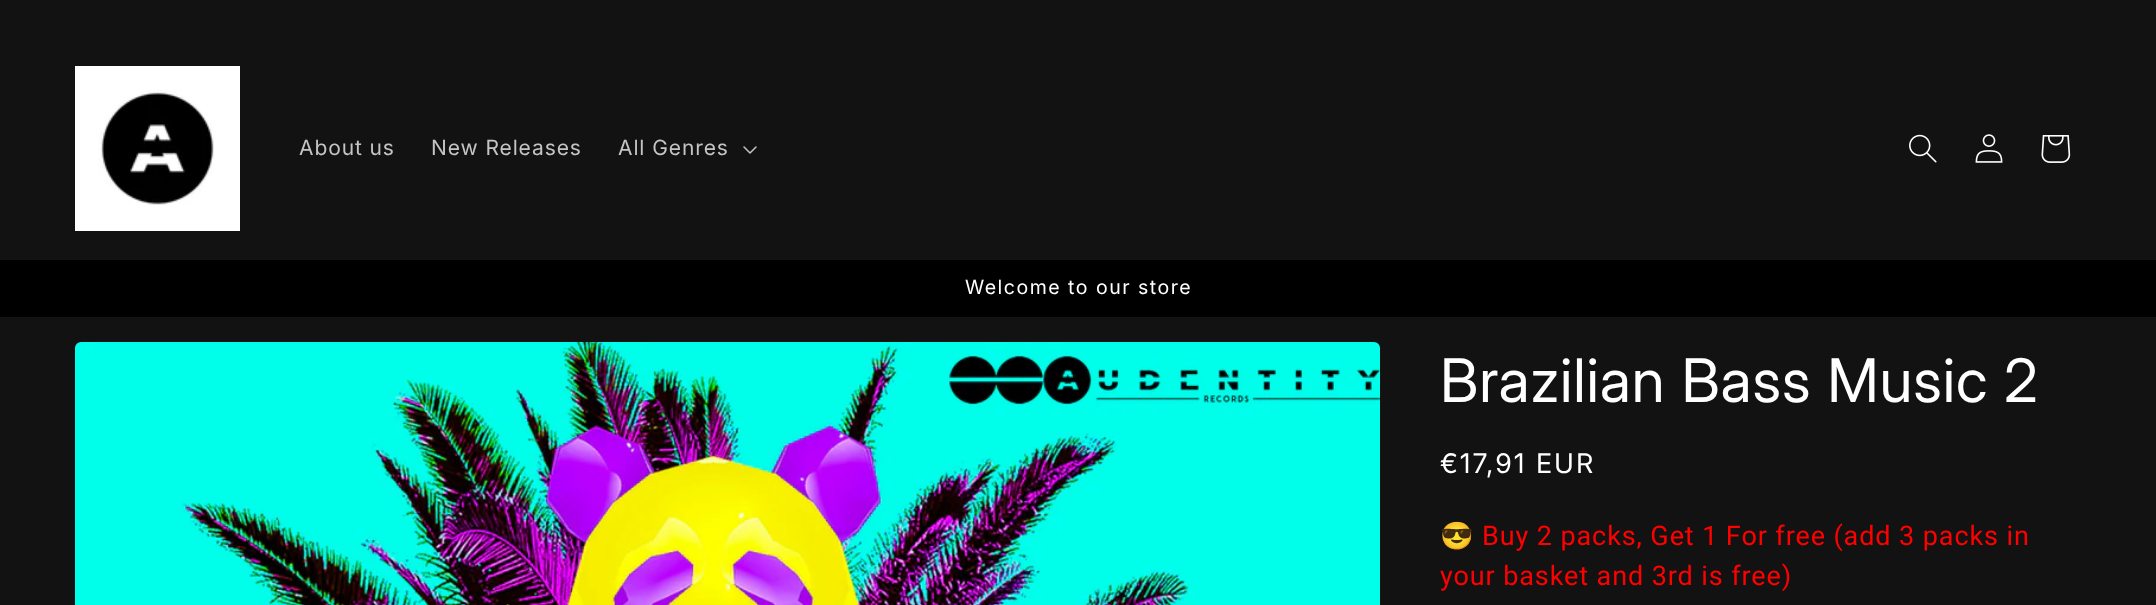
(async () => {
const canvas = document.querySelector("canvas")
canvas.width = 2156
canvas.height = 605
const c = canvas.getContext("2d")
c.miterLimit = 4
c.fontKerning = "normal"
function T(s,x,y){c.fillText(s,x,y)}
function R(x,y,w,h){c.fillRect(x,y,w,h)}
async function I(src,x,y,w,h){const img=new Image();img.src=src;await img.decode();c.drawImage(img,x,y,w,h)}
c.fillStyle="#000"
R(0,0,2156,605)
c.fillStyle="#121212"
R(0,0,2156,260)
await I("1.png",75,66,165,165)
c.letterSpacing="0.9px"
c.font="21px Inter"
c.fillStyle="#c4c4c4"
T("About us",299,155)
T("New Releases",431,155)
T("All Genres",618,155)
await I("2.png",743,146,14,8)
await I("3.png",1909,134,28,29)
await I("4.png",1975,134,28,29)
await I("5.png",2041,135,30,28)
c.fillStyle="#141414"
R(0,317,2156,1)
c.letterSpacing="1.5px"
c.font="19.5px Inter"
c.fillStyle="#fff"
T("Welcome to our store",965,294)
c.fillStyle="#121212"
R(0,318,2156,287)
await I("6.png",75,342,1305,263)
c.letterSpacing="0.9px"
c.font="60px 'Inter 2'"
c.fillStyle="#fff"
T("Brazilian Bass Music 2",1440,402)
c.letterSpacing="2px"
c.font="27px 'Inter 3'"
T("€17,91 EUR",1440,473)
c.letterSpacing="0.9px"
c.font="27px Noto Color Emoji"
c.fillStyle="#f00"
T("😎",1440,545)
c.font="27px Roboto"
T("Buy 2 packs, Get 1 For free (add 3 packs in",1482,545)
T("your basket and 3rd is free)",1440,585)
})()
